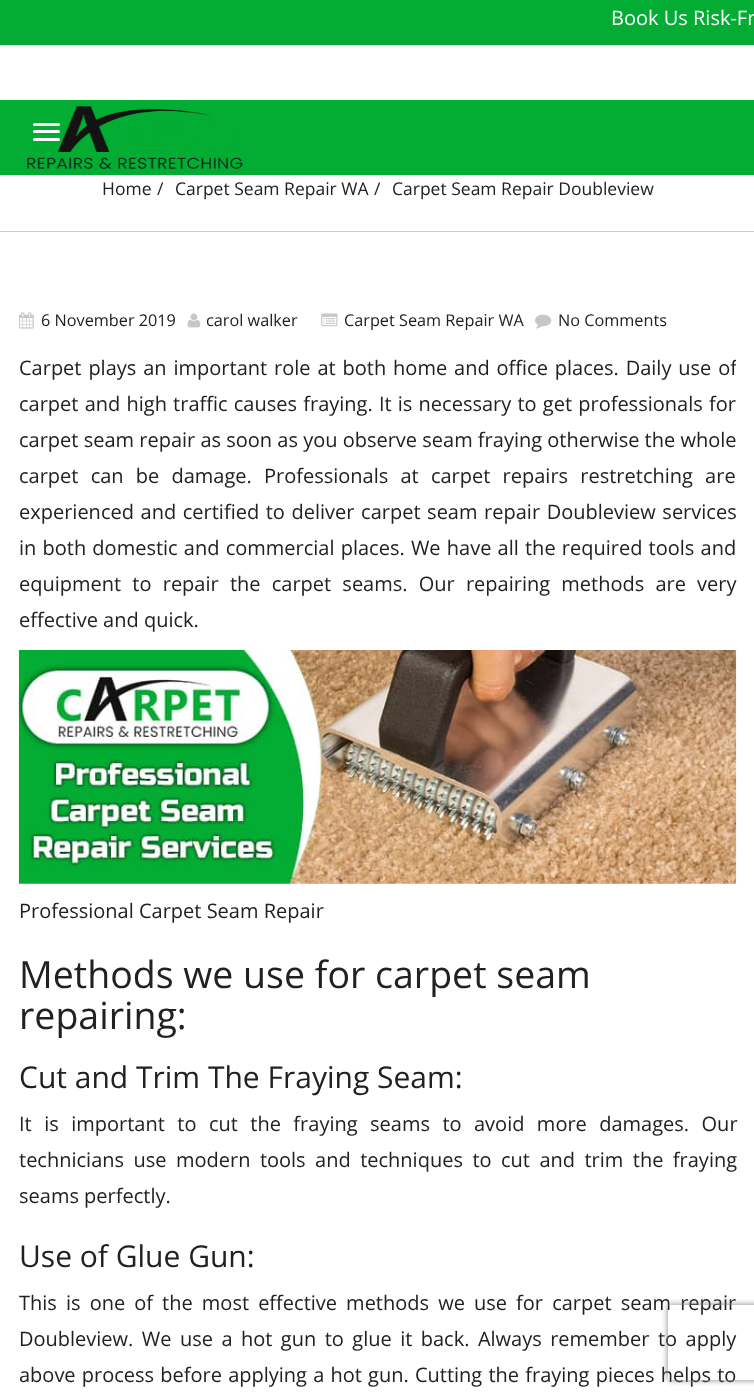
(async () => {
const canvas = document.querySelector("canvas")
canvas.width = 754
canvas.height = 1397
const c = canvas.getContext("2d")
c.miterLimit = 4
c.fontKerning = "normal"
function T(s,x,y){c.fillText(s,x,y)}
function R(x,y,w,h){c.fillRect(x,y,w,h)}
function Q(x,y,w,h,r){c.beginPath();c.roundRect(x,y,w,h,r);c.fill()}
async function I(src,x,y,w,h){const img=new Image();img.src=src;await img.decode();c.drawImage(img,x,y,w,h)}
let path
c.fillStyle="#fff"
R(0,0,754,1397)
c.fillStyle="#03ac32"
R(0,0,754,45)
c.font="20px Open Sans"
c.fillStyle="#fff"
T("Book Us Risk-Fr",611,25)
c.fillStyle="#03ac32"
R(0,100,754,75)
await I("1.png",27,106,216,63)
c.fillStyle="#fff"
Q(33,123,27,3,1.5)
Q(33,130,27,3,1.5)
Q(33,138,27,3,1.5)
c.fillStyle="#ccc"
R(0,231,754,1)
c.font="17.5px Open Sans"
c.fillStyle="#212121"
T("Home",102,195)
T("/",157,195)
T("Carpet Seam Repair WA",175,195)
T("/",374,195)
T("Carpet Seam Repair Doubleview",392,195)
await I("2.png",19,312,15,17)
c.font="16.25px Open Sans"
T("6 November 2019",41,326)
await I("3.png",187,313,14,15)
T("carol walker",206,326)
await I("4.png",321,313,17,14)
T("Carpet Seam Repair WA",344,326)
await I("5.png",535,314,17,15)
T("No Comments",558,326)
c.save()
c.beginPath()
c.rect(19,295,717,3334)
c.clip()
c.wordSpacing="1.7px"
c.font="20px Open Sans"
T("Carpet plays an important role at both home and office places. Daily use of",19,375)
c.restore()
c.wordSpacing="1px"
c.font="20px Open Sans"
T("carpet and high traffic causes fraying. It is necessary to get professionals for",19,411)
c.wordSpacing="0px"
T("carpet seam repair as soon as you observe seam fraying otherwise the whole",19,447)
c.wordSpacing="7px"
T("carpet can be damage. Professionals at carpet repairs restretching are",19,483)
c.wordSpacing="1.4px"
T("experienced and certified to deliver carpet seam repair Doubleview services",19,519)
c.wordSpacing="1px"
T("in both domestic and commercial places. We have all the required tools and",19,555)
c.wordSpacing="6px"
T("equipment to repair the carpet seams. Our repairing methods are very",19,591)
c.wordSpacing="0px"
T("effective and quick.",19,627)
await I("6.png",18,650,719,234)
T("Professional Carpet Seam Repair",19,918)
c.font="37.5px Open Sans"
T("Methods we use for carpet seam",19,988)
T("repairing:",19,1029)
c.font="30px Open Sans"
T("Cut and Trim The Fraying Seam:",19,1088)
c.wordSpacing="7.25px"
c.font="20px Open Sans"
T("It is important to cut the fraying seams to avoid more damages. Our",19,1131)
c.wordSpacing="4.25px"
T("technicians use modern tools and techniques to cut and trim the fraying",19,1167)
c.wordSpacing="0px"
T("seams perfectly.",19,1203)
c.font="30px Open Sans"
T("Use of Glue Gun:",19,1267)
c.wordSpacing="3.9px"
c.font="20px Open Sans"
T("This is one of the most effective methods we use for carpet seam repair",19,1310)
c.wordSpacing="3.25px"
T("Doubleview. We use a hot gun to glue it back. Always remember to apply",19,1346)
c.wordSpacing="1px"
T("above process before applying a hot gun. Cutting the fraying pieces helps to",19,1382)
c.save()
path = new Path2D("M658 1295h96v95h-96zm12.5 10h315c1.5 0 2.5 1 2.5 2.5v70c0 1.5-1 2.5-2.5 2.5h-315c-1.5 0-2.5-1-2.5-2.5v-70c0-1.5 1-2.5 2.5-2.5z")
c.clip(path,"evenodd")
c.fillStyle="#808080"
c.filter="blur(3px)"
c.beginPath()
c.roundRect(668,1305,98,75,2.5)
c.fill()
c.filter="none"
c.restore()
})()
